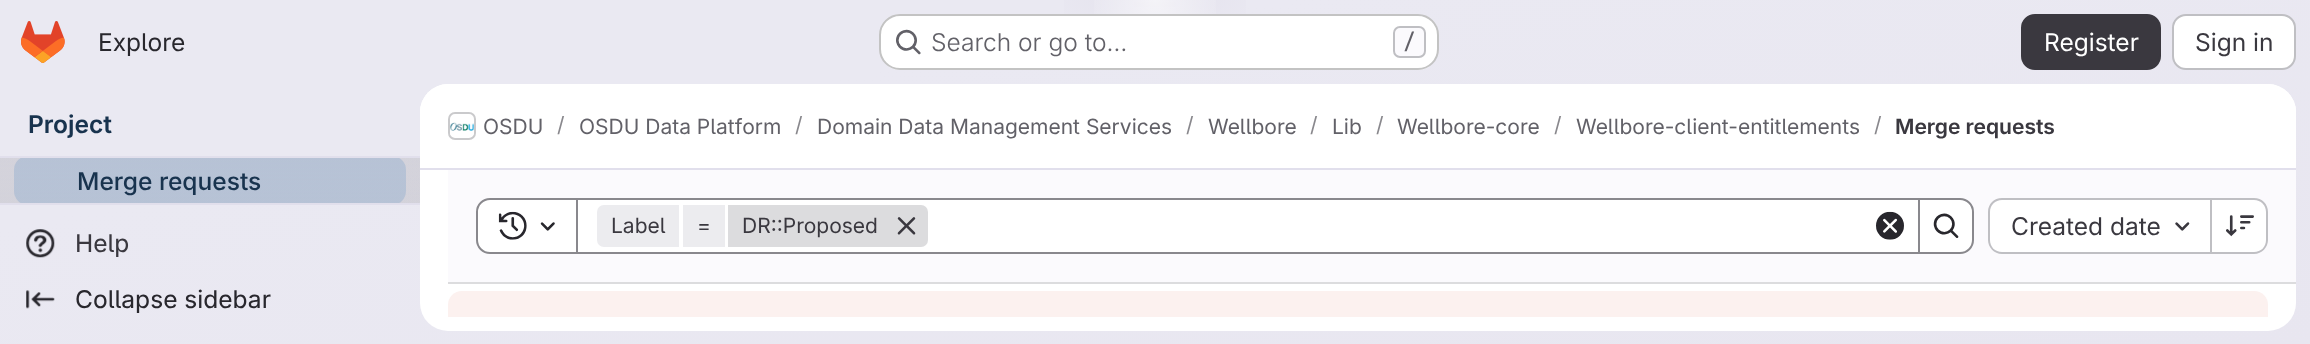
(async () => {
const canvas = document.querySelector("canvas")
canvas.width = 2310
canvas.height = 344
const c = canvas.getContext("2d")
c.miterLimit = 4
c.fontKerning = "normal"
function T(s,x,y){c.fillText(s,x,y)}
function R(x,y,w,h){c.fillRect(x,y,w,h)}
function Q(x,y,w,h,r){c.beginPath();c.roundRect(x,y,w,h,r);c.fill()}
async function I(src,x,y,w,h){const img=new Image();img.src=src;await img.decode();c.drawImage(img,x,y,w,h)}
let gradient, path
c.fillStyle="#fff"
R(0,0,2310,344)
gradient = c.createLinearGradient(1219,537,1091,-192)
gradient.addColorStop(0,"#e8e6f0")
gradient.addColorStop(.7,"#eae9f2")
c.fillStyle = gradient
R(0,0,2310,344)
gradient = c.createRadialGradient(1155,0,0,1155,0,1155)
gradient.addColorStop(0,"#e4e2ed")
gradient.addColorStop(.11,"#e4e2ed00")
c.fillStyle = gradient
c.beginPath()
c.rect(1064,0,182,14)
c.save()
c.clip()
c.scale(1,345 / 1155)
c.fillRect(0,0,2310,1152)
c.restore()
gradient = c.createRadialGradient(1155,0,0,1155,0,1155)
gradient.addColorStop(0,"#e4e2ec")
gradient.addColorStop(.08,"#e4e2ec00")
c.fillStyle = gradient
c.beginPath()
c.rect(1134,2,42,5)
c.save()
c.clip()
c.scale(1,345 / 1155)
c.fillRect(0,0,2310,1152)
c.restore()
gradient = c.createRadialGradient(1155,0,0,1155,0,1205)
gradient.addColorStop(0,"#ffffff99")
gradient.addColorStop(.06,"#ffffff00")
c.fillStyle = gradient
R(1094,0,122,14)
await I("1.png",21,21,44,42)
c.font="24.5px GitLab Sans"
c.fillStyle="#28272d"
T("Explore",98,51)
c.fillStyle="#fff"
Q(879,14,560,56,21)
c.beginPath()
c.roundRect(880,15,558,54,20)
c.strokeStyle="#0505063d"
c.lineWidth=2
c.stroke()
await I("2.png",896,29,25,26)
c.font="300 24.5px GitLab Sans"
c.fillStyle="#626168"
T("Search or go to…",931,51)
c.fillStyle="#fbfafd"
c.beginPath()
c.roundRect(1394,27,31,30,6)
c.fill()
c.strokeStyle="#bfbfc3"
c.stroke()
c.font="500 21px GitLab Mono"
c.fillStyle="#626168"
T("/",1403,49)
c.fillStyle="#3a383f"
c.beginPath()
c.roundRect(2022,15,138,54,13)
c.fill()
c.strokeStyle="#3a383f"
c.stroke()
c.font="24.5px GitLab Sans"
c.fillStyle="#fff"
T("Register",2044,51)
c.beginPath()
c.roundRect(2173,15,122,54,13)
c.fill()
c.strokeStyle="#bfbfc3"
c.stroke()
c.fillStyle="#3a383f"
T("Sign in",2195,51)
c.font="600 24.5px GitLab Sans"
c.fillStyle="#18334e"
T("Project",28,133)
c.fillStyle="#e1dfec"
R(0,156,420,2)
R(0,203,420,2)
c.save()
c.beginPath()
c.rect(0,158,420,45)
c.clip()
c.fillStyle="#cad7ec"
Q(14,156,392,49,14)
c.restore()
gradient = c.createLinearGradient(210,157,210,221)
gradient.addColorStop(0,"#05050614")
gradient.addColorStop(1,"#05050600")
c.fillStyle = gradient
R(0,158,420,45)
gradient = c.createLinearGradient(210,140,210,203)
gradient.addColorStop(0,"#05050600")
gradient.addColorStop(1,"#05050614")
c.fillStyle = gradient
R(0,158,420,45)
c.font="500 24.5px GitLab Sans"
c.fillStyle="#18334e"
T("Merge requests",77,190)
await I("3.png",26,229,29,29)
c.font="24.5px 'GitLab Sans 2'"
c.fillStyle="#3a383f"
T("Help",75,252)
await I("4.png",26,290,29,19)
c.fillStyle="#28272d"
T("Collapse sidebar",75,308)
c.fillStyle="#fff"
Q(420,84,1876,247,28)
c.beginPath()
c.roundRect(420,84,1876,86,[28,28,0,0])
c.fill()
c.fillStyle="#e1dfec"
R(420,168,1876,2)
c.beginPath()
c.roundRect(449,113,26,26,6)
c.strokeStyle="#dcdcde"
c.stroke()
await I("5.png",450,122,24,13)
c.beginPath()
c.roundRect(449,113,26,26,6)
c.strokeStyle="#05050614"
c.stroke()
c.font="21px GitLab Sans"
c.fillStyle="#626168"
T("OSDU",483,134)
c.fillStyle="#89888d"
T("/",557,132)
c.fillStyle="#626168"
T("OSDU Data Platform",579,134)
c.fillStyle="#89888d"
T("/",795,132)
c.fillStyle="#626168"
T("Domain Data Management Services",817,134)
c.fillStyle="#89888d"
T("/",1186,132)
c.fillStyle="#626168"
T("Wellbore",1208,134)
c.fillStyle="#89888d"
T("/",1310,132)
c.fillStyle="#626168"
T("Lib",1332,134)
c.fillStyle="#89888d"
T("/",1376,132)
c.fillStyle="#626168"
T("Wellbore-core",1397,134)
c.fillStyle="#89888d"
T("/",1554,132)
c.fillStyle="#626168"
T("Wellbore-client-entitlements",1576,134)
c.fillStyle="#89888d"
T("/",1874,132)
c.font="600 21px GitLab Sans"
c.fillStyle="#3a383f"
T("Merge requests",1895,134)
c.fillStyle="#fbfafd"
R(448,170,1848,112)
c.fillStyle="#dcdcde"
R(448,282,1848,2)
c.fillStyle="#fff"
c.beginPath()
c.rect(577,199,1342,54)
c.fill()
c.strokeStyle="#89888d"
c.stroke()
c.beginPath()
c.roundRect(477,199,100,54,[13,0,0,13])
c.fill()
c.stroke()
await I("6.png",498,211,29,29)
await I("7.png",540,222,15,9)
c.fillStyle="#ececef"
c.beginPath()
c.roundRect(597,205,82,42,[7,0,0,7])
c.fill()
c.font="21px GitLab Sans"
c.fillStyle="#3a383f"
T("Label",611,233)
c.fillStyle="#ececef"
R(683,205,42,42)
c.fillStyle="#3a383f"
T("=",697,233)
c.fillStyle="#dcdcde"
c.beginPath()
c.roundRect(728,205,200,42,[0,7,7,0])
c.fill()
c.fillStyle="#3a383f"
T("DR::Proposed",742,233)
await I("8.png",897,217,19,18)
await I("9.png",1876,211,28,29)
c.fillStyle="#fff"
c.beginPath()
c.roundRect(1919,199,54,54,[0,13,13,0])
c.fill()
c.stroke()
await I("10.png",1933,213,26,25)
c.beginPath()
c.roundRect(1990,200,220,52,[12,0,0,12])
c.fill()
c.fillStyle="#bfbfc3"
path = new Path2D("M2002 198h208v56h-208c-8 0-14-7-14-14v-28c0-8 6-14 14-14zm0 2h208v52h-208c-7 0-12-5-12-12v-28c0-7 5-12 12-12z")
c.fill(path,"evenodd")
c.font="24.5px GitLab Sans"
c.fillStyle="#3a383f"
T("Created date",2011,235)
await I("11.png",2175,222,15,9)
c.fillStyle="#fff"
c.beginPath()
c.roundRect(2212,200,54,52,[0,12,12,0])
c.fill()
c.fillStyle="#bfbfc3"
path = new Path2D("M2212 198h42c8 0 14 6 14 14v28c0 7-6 14-14 14h-42zm0 2h42c7 0 12 5 12 12v28c0 7-5 12-12 12h-42z")
c.fill(path,"evenodd")
R(2210,198,2,56)
await I("12.png",2226,215,28,22)
c.fillStyle="#fcf1ef"
c.beginPath()
c.roundRect(448,291,1820,26,[14,14,0,0])
c.fill()
})()
